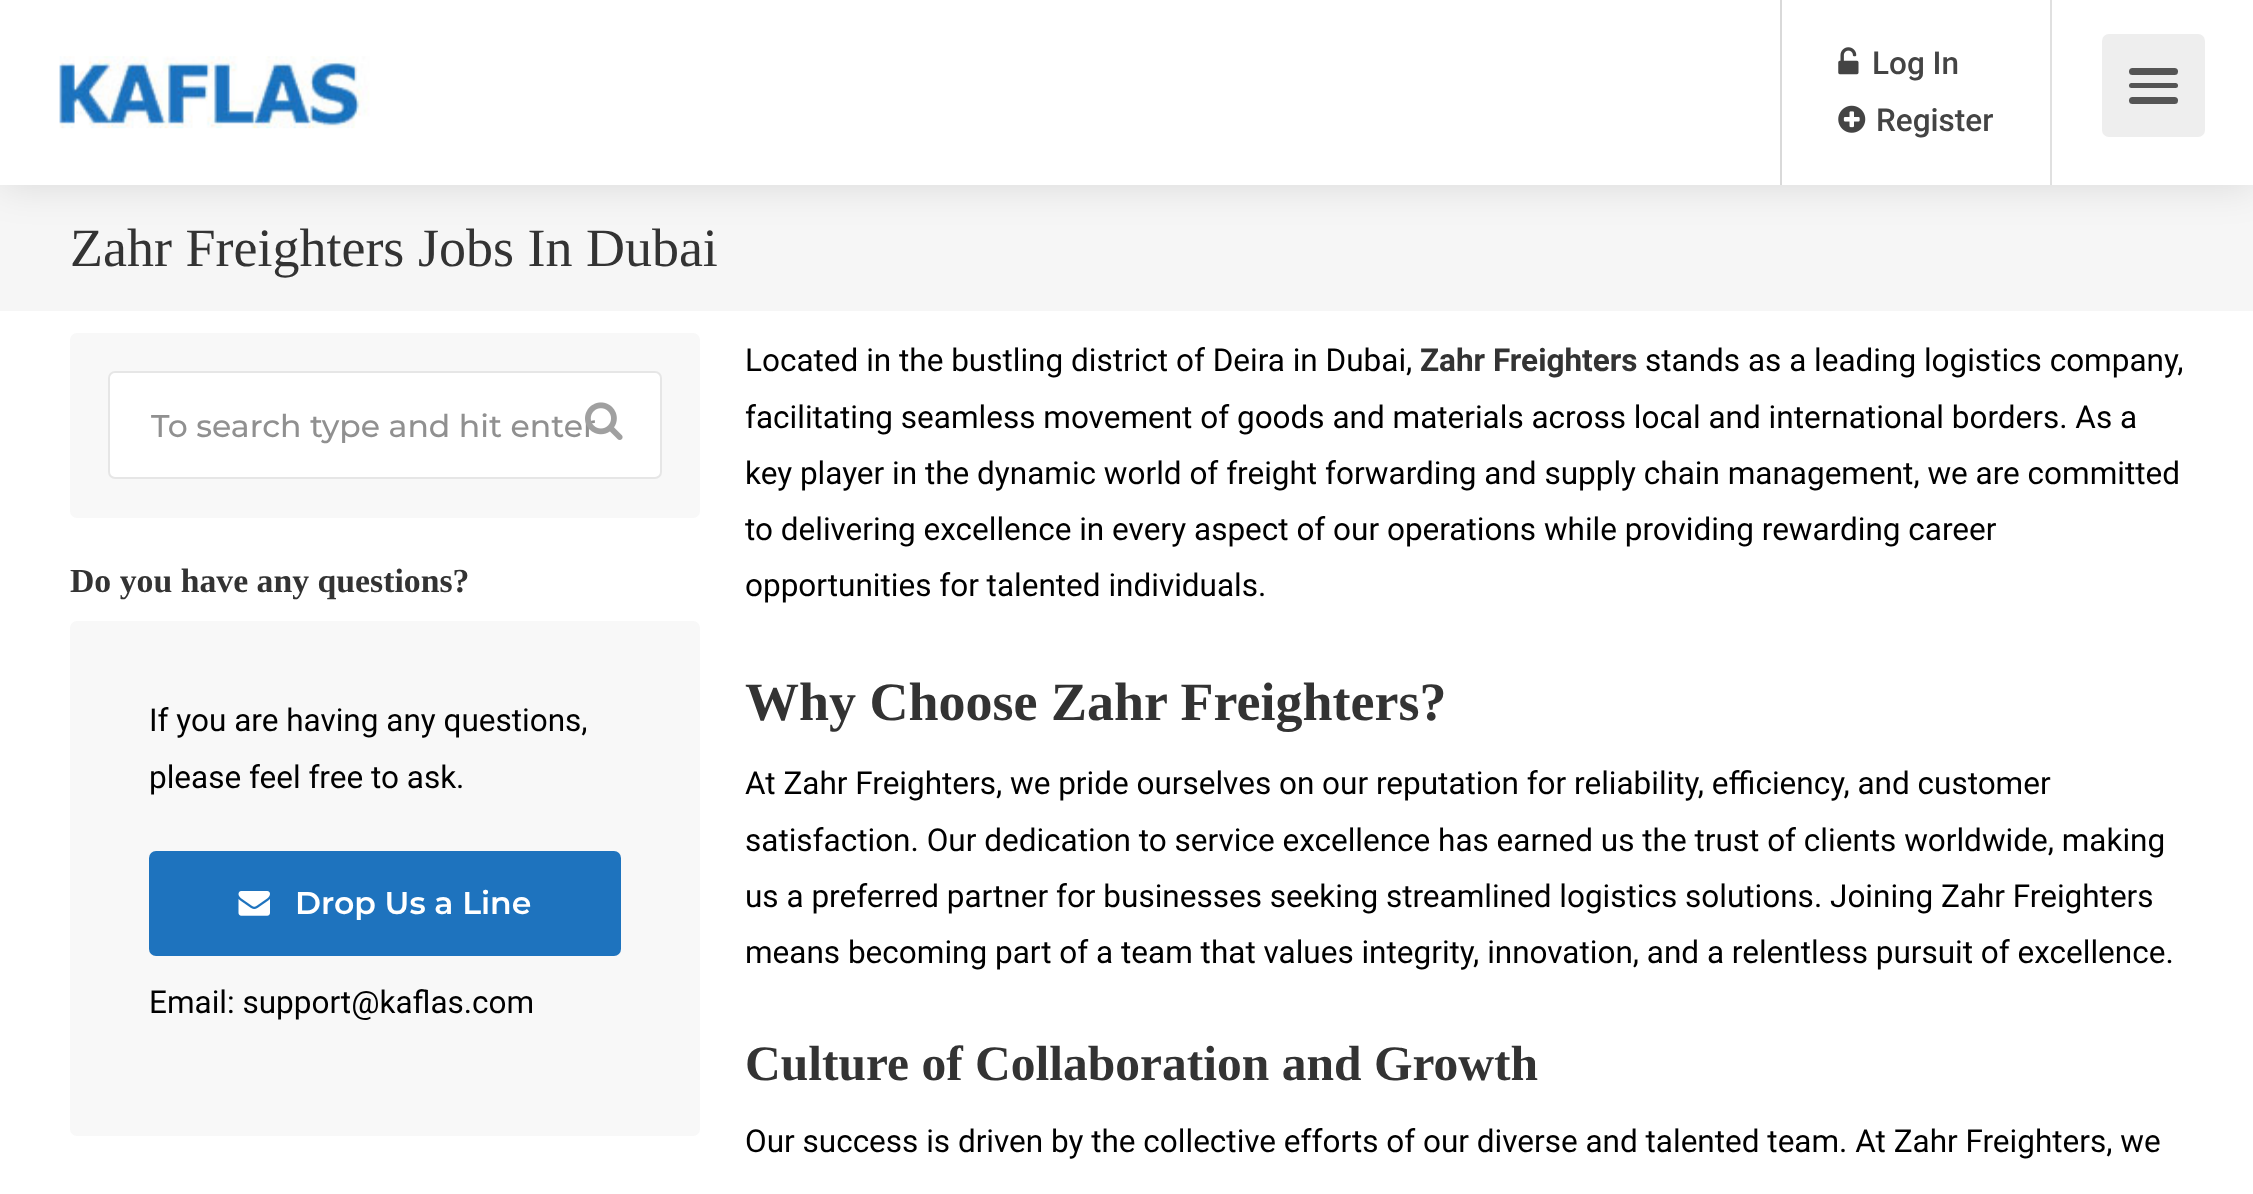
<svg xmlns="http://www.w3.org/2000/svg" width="2253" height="1194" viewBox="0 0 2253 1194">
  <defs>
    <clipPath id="clip1"><path d="M151 405h468v41H151z"/></clipPath>
  </defs>
  <rect width="100%" height="100%" fill="#fff"/>
  <path d="M0 185h2253v126H0z" fill="#f6f6f6"/>
  <path d="M0 0h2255v185H0z" fill="#0000001f" filter="blur(20px)"/>
  <path d="M0 0h2253v185H0z" fill="#fff"/>
  <image x="59" y="56" width="311" height="73" href="img/1.png"/>
  <path d="M2050 0h2v185H2050z" fill="#e0e0e0"/>
  <path d="M1780 0h2v185H1780z" fill="#d9d9d9"/>
  <image x="1838" y="47" width="21" height="28" href="img/2.png"/>
  <image x="1838" y="105" width="28" height="28" href="img/3.png"/>
  <rect x="2102" y="34" width="103" height="103" rx="7" fill="#eee"/>
  <rect x="2129" y="97" width="49" height="7" rx="3.5" fill="#555"/>
  <rect x="2129" y="68" width="49" height="7" rx="3.5" fill="#555"/>
  <rect x="2129" y="83" width="49" height="5" rx="2.5" fill="#555"/>
  <rect x="70" y="333" width="630" height="185" rx="7" fill="#f8f8f8"/>
  <rect x="109" y="372" width="552" height="106" rx="6" fill="#fff" stroke="#e6e6e6" stroke-width="2"/>
  <rect x="70" y="621" width="630" height="515" rx="7" fill="#f8f8f8"/>
  <rect x="149" y="851" width="472" height="105" rx="7" fill="#1e73be"/>
  <image x="238" y="891" width="32" height="25" href="img/5.png"/>
  <g font-family="Roboto" font-size="31.5" font-weight="500" fill="#444">
    <text x="1872" y="74">Log In</text>
    <text x="1876" y="131">Register</text>
  </g>
  <text x="70" y="266" font-family="Liberation Serif" font-size="54" fill="#333">Zahr Freighters Jobs In Dubai</text>
  <g clip-path="url(#clip1)">
    <text x="151" y="437" font-family="Montserrat" font-size="31.5" font-weight="500" fill="#909090">To search type and hit enter</text>
  </g>
  <image x="585" y="402" width="38" height="38" href="img/4.png"/>
  <text x="70" y="592" font-family="Liberation Serif" font-size="33.75" font-weight="bold" fill="#333">Do you have any questions?</text>
  <g font-family="Roboto" font-size="31.5" fill="#000">
    <text x="149" y="731">If you are having any questions,</text>
    <text x="149" y="788">please feel free to ask.</text>
  </g>
  <text x="295" y="914" font-family="Montserrat" font-size="31.5" font-weight="600" fill="#fff">Drop Us a Line</text>
  <g font-family="Roboto" font-size="31.5" fill="#000">
    <text x="149" y="1013">Email: support@kaflas.com</text>
    <text x="745" y="371">Located in the bustling district of Deira in Dubai,</text>
  </g>
  <text x="1420" y="371" font-family="Roboto" font-size="31.5" font-weight="bold" fill="#333">Zahr Freighters</text>
  <g font-family="Roboto" font-size="31.5" fill="#000">
    <text x="1645" y="371">stands as a leading logistics company,</text>
    <text x="745" y="428">facilitating seamless movement of goods and materials across local and international borders. As a</text>
    <text x="745" y="484">key player in the dynamic world of freight forwarding and supply chain management, we are committed</text>
    <text x="745" y="540">to delivering excellence in every aspect of our operations while providing rewarding career</text>
    <text x="745" y="596">opportunities for talented individuals.</text>
  </g>
  <text x="745" y="720" font-family="Liberation Serif" font-size="54" font-weight="bold" fill="#333">Why Choose Zahr Freighters?</text>
  <g font-family="Roboto" font-size="31.5" fill="#000">
    <text x="745" y="794">At Zahr Freighters, we pride ourselves on our reputation for reliability, efficiency, and customer</text>
    <text x="745" y="851">satisfaction. Our dedication to service excellence has earned us the trust of clients worldwide, making</text>
    <text x="745" y="907">us a preferred partner for businesses seeking streamlined logistics solutions. Joining Zahr Freighters</text>
    <text x="745" y="963">means becoming part of a team that values integrity, innovation, and a relentless pursuit of excellence.</text>
  </g>
  <text x="745" y="1080" font-family="Liberation Serif" font-size="49.5" font-weight="bold" fill="#333">Culture of Collaboration and Growth</text>
  <text x="745" y="1152" font-family="Roboto" font-size="31.5" fill="#000">Our success is driven by the collective efforts of our diverse and talented team. At Zahr Freighters, we</text>
</svg>
